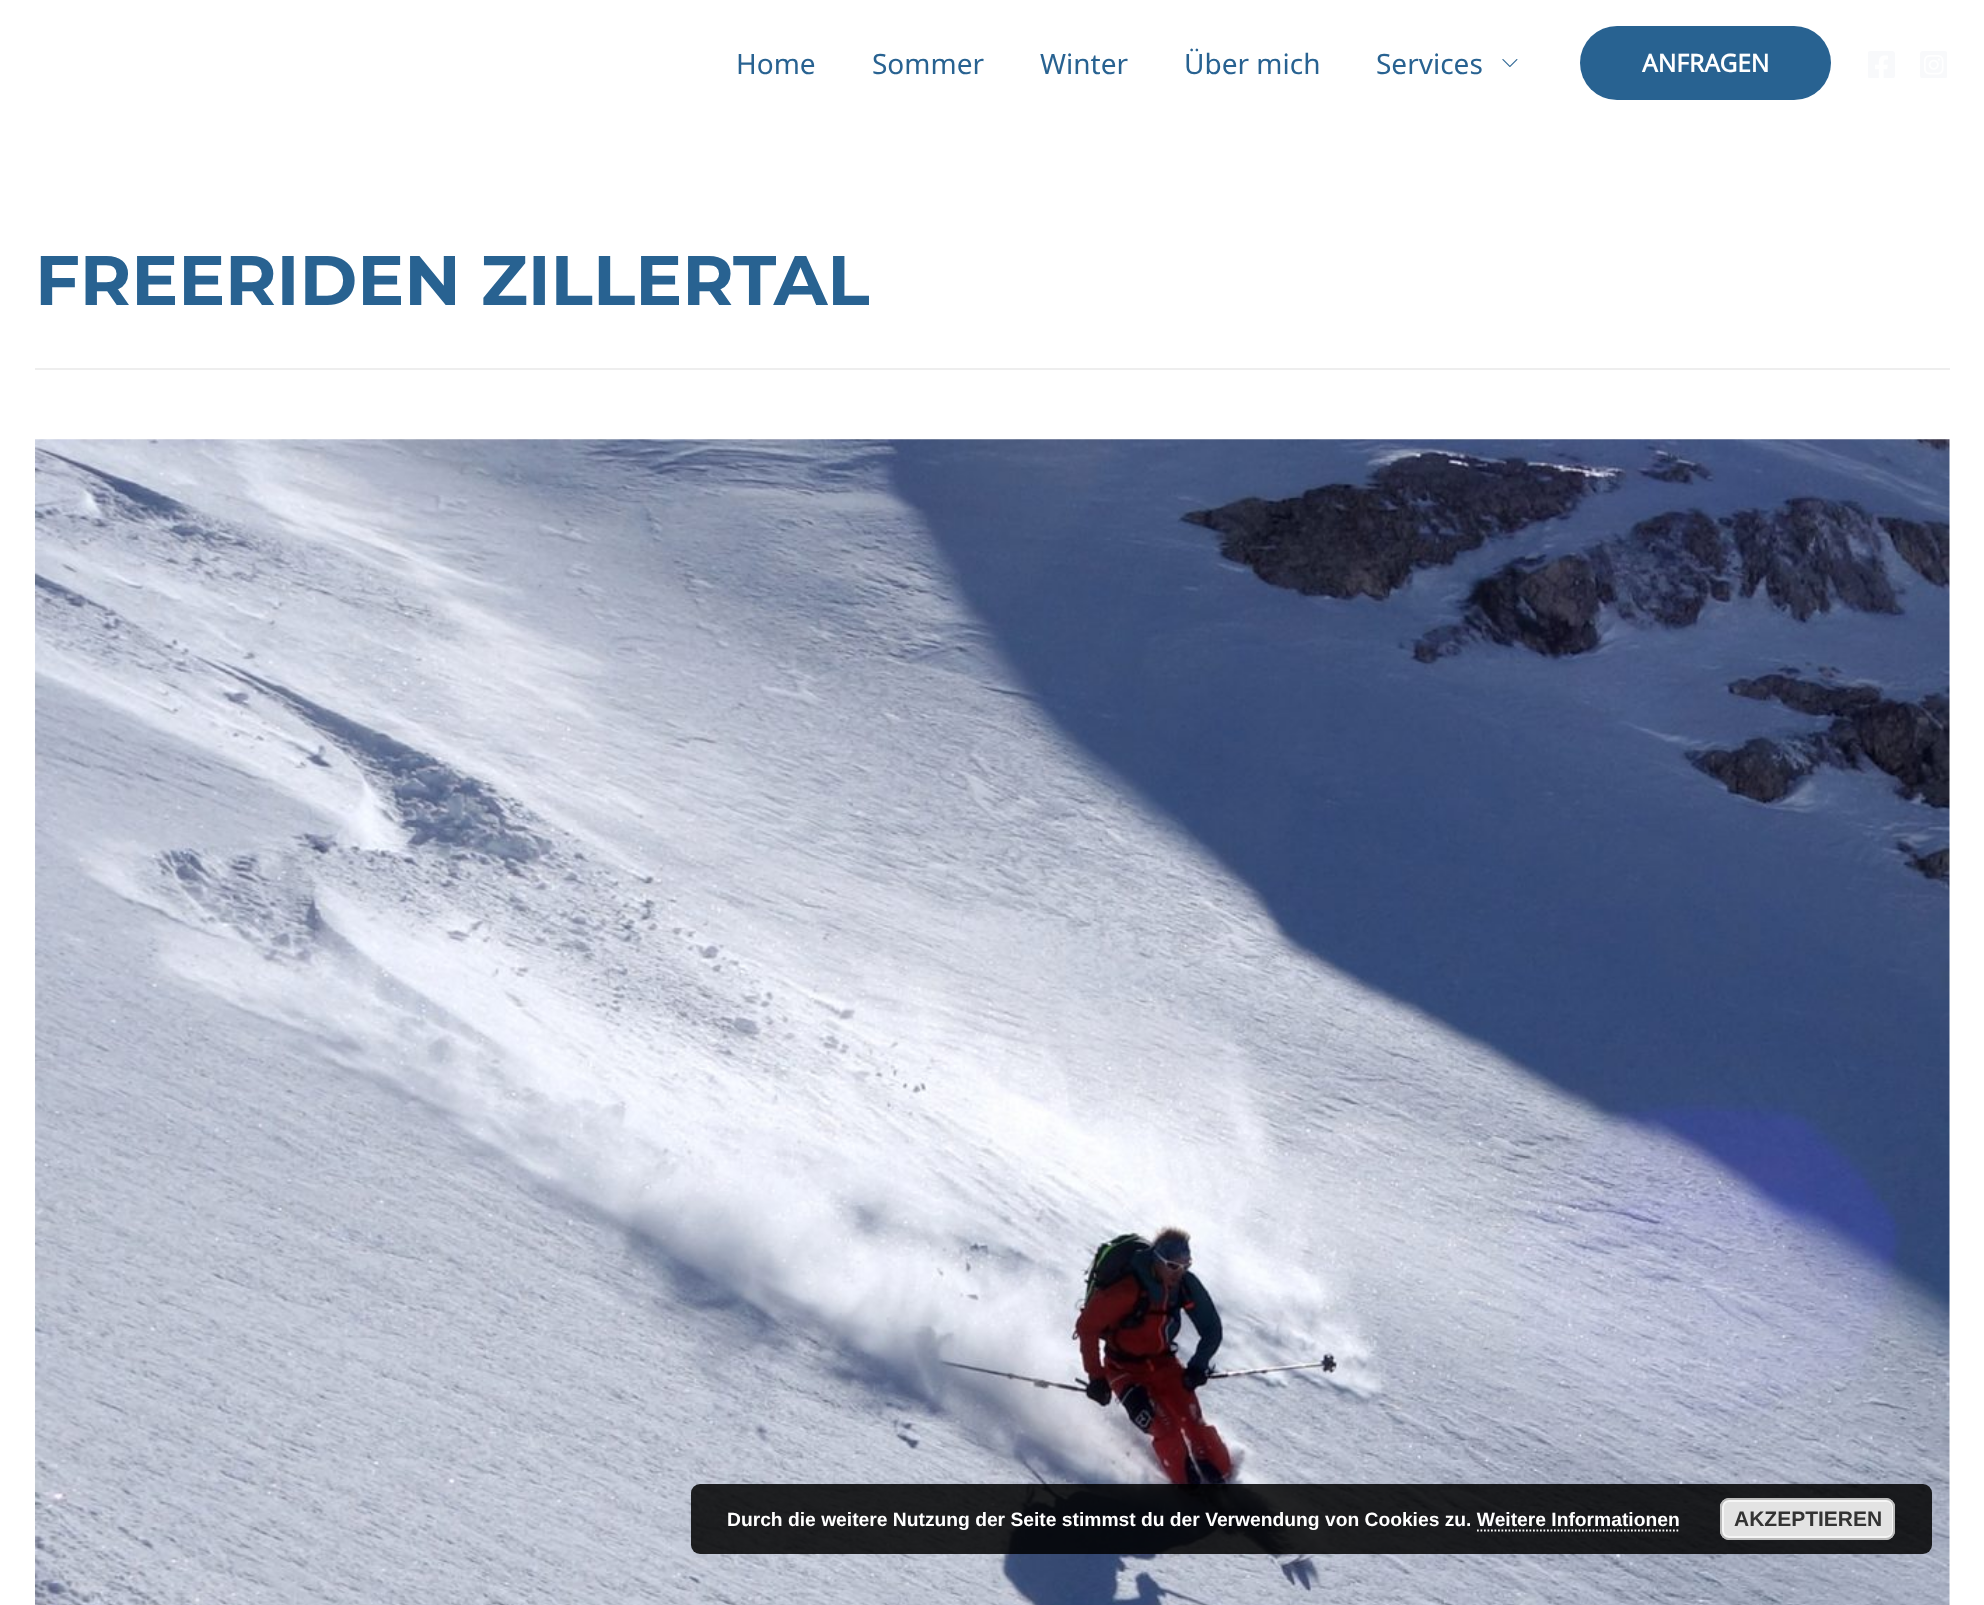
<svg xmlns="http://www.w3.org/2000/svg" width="1984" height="1605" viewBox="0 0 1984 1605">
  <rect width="100%" height="100%" fill="#fff"/>
  <image x="1502" y="59" width="16" height="8" href="img/1.png"/>
  <rect x="1580" y="26" width="251" height="74" rx="37" fill="#286291"/>
  <image x="1868" y="51" width="27" height="27" href="img/2.png"/>
  <image x="1920" y="51" width="27" height="27" href="img/3.png"/>
  <path d="M35 368h1915v2H35z" fill="#eee"/>
  <image x="35" y="439" width="1915" height="1166" href="img/4.png"/>
  <rect x="691" y="1484" width="1241" height="70" rx="9" fill="#000000d9"/>
  <rect x="1720" y="1498" width="175" height="42" rx="9" fill="#e3e3e3"/>
  <rect x="1723" y="1501" width="170" height="36" rx="6" fill="none" stroke="#f6f6f6" stroke-width="2"/>
  <rect x="1721" y="1499" width="173" height="40" rx="8" fill="none" stroke="#bbb" stroke-width="2"/>
  <path d="M1477 1530.5H1680" fill="none" stroke="#fff" stroke-width="1.8" stroke-dasharray="1.75 1.75"/>
  <g font-family="Noto Sans" font-size="28" fill="#286291">
    <text x="736" y="74">Home</text>
    <text x="872" y="74">Sommer</text>
    <text x="1040" y="74">Winter</text>
    <text x="1184" y="74">Über mich</text>
    <text x="1376" y="74">Services</text>
  </g>
  <text x="1642" y="72" font-family="Noto Sans" font-size="24.5" font-weight="bold" fill="#fff">ANFRAGEN</text>
  <text x="35" y="305" font-family="Montserrat" font-size="70" font-weight="100" fill="#286291">FREERIDEN ZILLERTAL</text>
  <text x="727" y="1526" font-family="Liberation Sans" font-size="19.25" font-weight="bold" fill="#fff">Durch die weitere Nutzung der Seite stimmst du der Verwendung von Cookies zu. Weitere Informationen</text>
  <text x="1734" y="1526" font-family="Liberation Sans" font-size="21" font-weight="bold" fill="#333">AKZEPTIEREN</text>
</svg>
